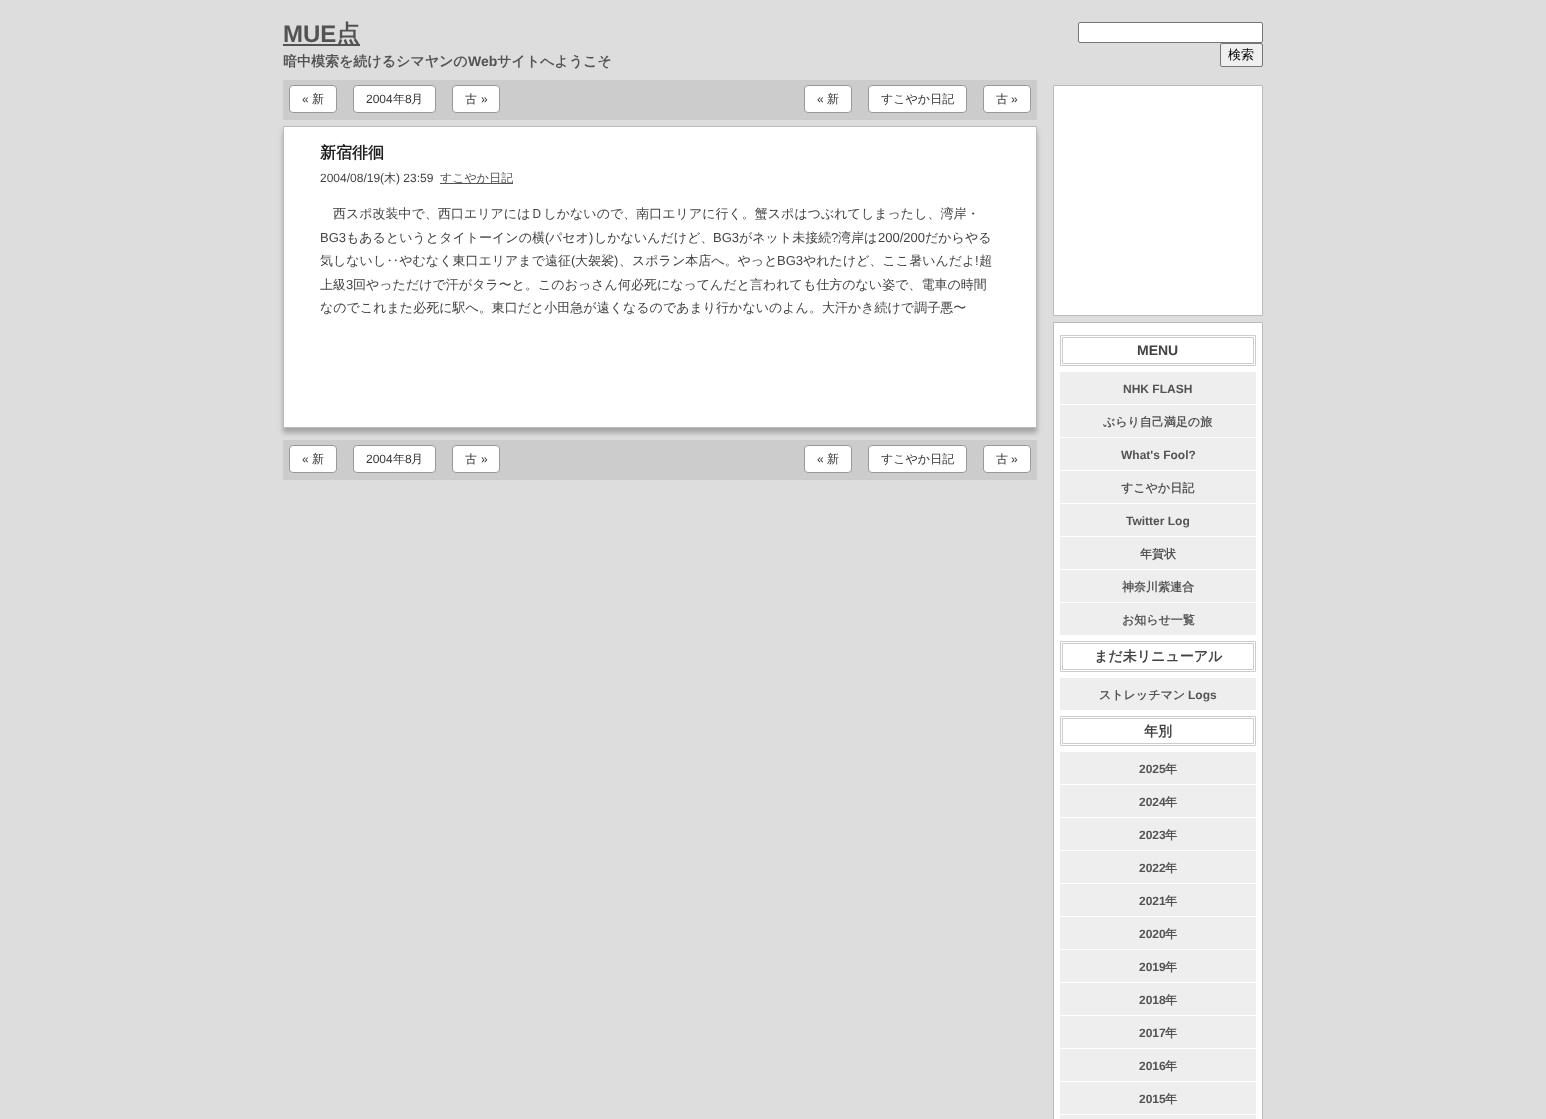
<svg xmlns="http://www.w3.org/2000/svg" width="1546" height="1119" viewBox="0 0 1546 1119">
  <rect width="100%" height="100%" fill="#ddd"/>
  <path d="M283 44h77v2H283z" fill="#535353"/>
  <path d="M283 80h754v40H283z" fill="#ccc"/>
  <rect x="289.5" y="85.5" width="47" height="27" rx="3.5" fill="#fff" stroke="#999"/>
  <rect x="353.5" y="85.5" width="82" height="27" rx="3.5" fill="#fff" stroke="#999"/>
  <rect x="452.5" y="85.5" width="47" height="27" rx="3.5" fill="#fff" stroke="#999"/>
  <rect x="804.5" y="85.5" width="47" height="27" rx="3.5" fill="#fff" stroke="#999"/>
  <rect x="868.5" y="85.5" width="98" height="27" rx="3.5" fill="#fff" stroke="#999"/>
  <rect x="983.5" y="85.5" width="47" height="27" rx="3.5" fill="#fff" stroke="#999"/>
  <path d="M283 131h754v302H283z" fill="#a3a3a3" filter="blur(2.5px)"/>
  <path d="M283.5 126.5h753v301H283.5z" fill="#fff" stroke="#bbb"/>
  <path d="M440 183h73v1H440z" fill="#535353"/>
  <path d="M283 440h754v40H283z" fill="#ccc"/>
  <rect x="289.5" y="445.5" width="47" height="27" rx="3.5" fill="#fff" stroke="#999"/>
  <rect x="353.5" y="445.5" width="82" height="27" rx="3.5" fill="#fff" stroke="#999"/>
  <rect x="452.5" y="445.5" width="47" height="27" rx="3.5" fill="#fff" stroke="#999"/>
  <rect x="804.5" y="445.5" width="47" height="27" rx="3.5" fill="#fff" stroke="#999"/>
  <rect x="868.5" y="445.5" width="98" height="27" rx="3.5" fill="#fff" stroke="#999"/>
  <rect x="983.5" y="445.5" width="47" height="27" rx="3.5" fill="#fff" stroke="#999"/>
  <rect x="1078.5" y="22.5" width="184" height="20" rx="1.5" fill="#fff" stroke="#767676"/>
  <rect x="1220.5" y="43.5" width="42" height="23" rx="1.5" fill="#efefef" stroke="#767676"/>
  <path d="M1053.5 85.5h209v230H1053.5z" fill="#fff" stroke="#bbb"/>
  <path d="M1053.5 322.5h209v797H1053.5z" fill="#fff" stroke="#bbb"/>
  <path d="M1060.5 335.5h195v30H1060.5z" fill="none" stroke="#ccc"/>
  <path d="M1062.5 337.5h191v26H1062.5z" fill="none" stroke="#ccc"/>
  <path d="M1060 372h196v32H1060z" fill="#eee"/>
  <path d="M1060 405h196v32H1060z" fill="#eee"/>
  <path d="M1060 438h196v32H1060z" fill="#eee"/>
  <path d="M1060 471h196v32H1060z" fill="#eee"/>
  <path d="M1060 504h196v32H1060z" fill="#eee"/>
  <path d="M1060 537h196v32H1060z" fill="#eee"/>
  <path d="M1060 570h196v32H1060z" fill="#eee"/>
  <path d="M1060 603h196v32H1060z" fill="#eee"/>
  <path d="M1060.5 641.5h195v30H1060.5z" fill="none" stroke="#ccc"/>
  <path d="M1062.5 643.5h191v26H1062.5z" fill="none" stroke="#ccc"/>
  <path d="M1060 678h196v32H1060z" fill="#eee"/>
  <path d="M1060.5 716.5h195v29H1060.5z" fill="none" stroke="#ccc"/>
  <path d="M1062.5 718.5h191v25H1062.5z" fill="none" stroke="#ccc"/>
  <path d="M1060 752h196v32H1060z" fill="#eee"/>
  <path d="M1060 785h196v32H1060z" fill="#eee"/>
  <path d="M1060 818h196v32H1060z" fill="#eee"/>
  <path d="M1060 851h196v32H1060z" fill="#eee"/>
  <path d="M1060 884h196v32H1060z" fill="#eee"/>
  <path d="M1060 917h196v32H1060z" fill="#eee"/>
  <path d="M1060 950h196v32H1060z" fill="#eee"/>
  <path d="M1060 983h196v32H1060z" fill="#eee"/>
  <path d="M1060 1016h196v32H1060z" fill="#eee"/>
  <path d="M1060 1049h196v32H1060z" fill="#eee"/>
  <path d="M1060 1082h196v32H1060z" fill="#eee"/>
  <path d="M1060 1115h196v4H1060z" fill="#eee"/>
  <text x="283" y="42" font-family="Liberation Sans" font-size="24" font-weight="bold" fill="#535353">MUE</text>
  <text x="336" y="42" font-family="WenQuanYi Zen Hei" font-size="24" font-weight="bold" fill="#535353">点</text>
  <text x="283" y="66" font-family="WenQuanYi Zen Hei" font-size="14" font-weight="bold" fill="#535353">暗中模索を続けるシマヤンの</text>
  <text x="468" y="66" font-family="Liberation Sans" font-size="14" font-weight="bold" fill="#535353">Web</text>
  <text x="497" y="66" font-family="WenQuanYi Zen Hei" font-size="14" font-weight="bold" fill="#535353">サイトへようこそ</text>
  <text x="302" y="103" font-family="Liberation Sans" font-size="12" fill="#333">«</text>
  <text x="312" y="103" font-family="WenQuanYi Zen Hei" font-size="12" font-weight="500" fill="#333">新</text>
  <text x="366" y="103" font-family="Liberation Sans" font-size="12" fill="#333">2004</text>
  <text x="393" y="103" font-family="WenQuanYi Zen Hei" font-size="12" font-weight="500" fill="#333">年</text>
  <text x="405" y="103" font-family="Liberation Sans" font-size="12" fill="#333">8</text>
  <g font-family="WenQuanYi Zen Hei" font-size="12" font-weight="500" fill="#333">
    <text x="411" y="103">月</text>
    <text x="465" y="103">古</text>
  </g>
  <g font-family="Liberation Sans" font-size="12" fill="#333">
    <text x="481" y="103">»</text>
    <text x="817" y="103">«</text>
  </g>
  <g font-family="WenQuanYi Zen Hei" font-size="12" font-weight="500" fill="#333">
    <text x="827" y="103">新</text>
    <text x="881" y="103">すこやか日記</text>
    <text x="996" y="103">古</text>
  </g>
  <text x="1011" y="103" font-family="Liberation Sans" font-size="12" fill="#333">»</text>
  <text x="320" y="158" font-family="WenQuanYi Zen Hei" font-size="16" font-weight="bold" fill="#222">新宿徘徊</text>
  <text x="320" y="182" font-family="Liberation Sans" font-size="12" fill="#424242">2004/08/19(</text>
  <text x="384" y="182" font-family="WenQuanYi Zen Hei" font-size="12" font-weight="500" fill="#424242">木</text>
  <text x="396" y="182" font-family="Liberation Sans" font-size="12" fill="#424242">) 23:59</text>
  <text x="440" y="182" font-family="WenQuanYi Zen Hei" font-size="12" font-weight="500" fill="#535353">すこやか日記</text>
  <text x="333" y="218" font-family="WenQuanYi Zen Hei" font-size="13" font-weight="500" fill="#424242">西スポ改装中で、西口エリアにはＤしかないので、南口エリアに行く。蟹スポはつぶれてしまったし、湾岸・</text>
  <text x="320" y="242" font-family="Liberation Sans" font-size="13" fill="#424242">BG3</text>
  <text x="346" y="242" font-family="WenQuanYi Zen Hei" font-size="13" font-weight="500" fill="#424242">もあるというとタイトーインの横</text>
  <text x="545" y="242" font-family="Liberation Sans" font-size="13" fill="#424242">(</text>
  <text x="549" y="242" font-family="WenQuanYi Zen Hei" font-size="13" font-weight="500" fill="#424242">パセオ</text>
  <text x="589" y="242" font-family="Liberation Sans" font-size="13" fill="#424242">)</text>
  <text x="594" y="242" font-family="WenQuanYi Zen Hei" font-size="13" font-weight="500" fill="#424242">しかないんだけど、</text>
  <text x="713" y="242" font-family="Liberation Sans" font-size="13" fill="#424242">BG3</text>
  <text x="739" y="242" font-family="WenQuanYi Zen Hei" font-size="13" font-weight="500" fill="#424242">がネット未接続</text>
  <text x="831" y="242" font-family="Liberation Sans" font-size="13" fill="#424242">?</text>
  <text x="838" y="242" font-family="WenQuanYi Zen Hei" font-size="13" font-weight="500" fill="#424242">湾岸は</text>
  <text x="878" y="242" font-family="Liberation Sans" font-size="13" fill="#424242">200/200</text>
  <g font-family="WenQuanYi Zen Hei" font-size="13" font-weight="500" fill="#424242">
    <text x="925" y="242">だからやる</text>
    <text x="320" y="265">気しないし‥やむなく東口エリアまで遠征</text>
  </g>
  <text x="571" y="265" font-family="Liberation Sans" font-size="13" fill="#424242">(</text>
  <text x="575" y="265" font-family="WenQuanYi Zen Hei" font-size="13" font-weight="500" fill="#424242">大袈裟</text>
  <text x="614" y="265" font-family="Liberation Sans" font-size="13" fill="#424242">)</text>
  <text x="619" y="265" font-family="WenQuanYi Zen Hei" font-size="13" font-weight="500" fill="#424242">、スポラン本店へ。やっと</text>
  <text x="777" y="265" font-family="Liberation Sans" font-size="13" fill="#424242">BG3</text>
  <text x="803" y="265" font-family="WenQuanYi Zen Hei" font-size="13" font-weight="500" fill="#424242">やれたけど、ここ暑いんだよ 超</text>
  <text x="975" y="265" font-family="Liberation Sans" font-size="13" fill="#424242">!</text>
  <text x="320" y="289" font-family="WenQuanYi Zen Hei" font-size="13" font-weight="500" fill="#424242">上級</text>
  <text x="346" y="289" font-family="Liberation Sans" font-size="13" fill="#424242">3</text>
  <g font-family="WenQuanYi Zen Hei" font-size="13" font-weight="500" fill="#424242">
    <text x="353" y="289">回やっただけで汗がタラ〜と。このおっさん何必死になってんだと言われても仕方のない姿で、電車の時間</text>
    <text x="320" y="312">なのでこれまた必死に駅へ。東口だと小田急が遠くなるのであまり行かないのよん。大汗かき続けで調子悪〜</text>
  </g>
  <text x="302" y="463" font-family="Liberation Sans" font-size="12" fill="#333">«</text>
  <text x="312" y="463" font-family="WenQuanYi Zen Hei" font-size="12" font-weight="500" fill="#333">新</text>
  <text x="366" y="463" font-family="Liberation Sans" font-size="12" fill="#333">2004</text>
  <text x="393" y="463" font-family="WenQuanYi Zen Hei" font-size="12" font-weight="500" fill="#333">年</text>
  <text x="405" y="463" font-family="Liberation Sans" font-size="12" fill="#333">8</text>
  <g font-family="WenQuanYi Zen Hei" font-size="12" font-weight="500" fill="#333">
    <text x="411" y="463">月</text>
    <text x="465" y="463">古</text>
  </g>
  <g font-family="Liberation Sans" font-size="12" fill="#333">
    <text x="481" y="463">»</text>
    <text x="817" y="463">«</text>
  </g>
  <g font-family="WenQuanYi Zen Hei" font-size="12" font-weight="500" fill="#333">
    <text x="827" y="463">新</text>
    <text x="881" y="463">すこやか日記</text>
    <text x="996" y="463">古</text>
  </g>
  <text x="1011" y="463" font-family="Liberation Sans" font-size="12" fill="#333">»</text>
  <text x="1228" y="59" font-family="WenQuanYi Zen Hei" font-size="13" font-weight="500" fill="#000">検索</text>
  <text x="1137" y="355" font-family="Liberation Sans" font-size="14" font-weight="bold" fill="#424242">MENU</text>
  <text x="1123" y="393" font-family="Liberation Sans" font-size="12" font-weight="bold" fill="#535353">NHK FLASH</text>
  <text x="1103" y="426" font-family="WenQuanYi Zen Hei" font-size="12" font-weight="bold" fill="#535353">ぶらり自己満足の旅</text>
  <text x="1121" y="459" font-family="Liberation Sans" font-size="12" font-weight="bold" fill="#535353">What's Fool?</text>
  <text x="1121" y="492" font-family="WenQuanYi Zen Hei" font-size="12" font-weight="bold" fill="#535353">すこやか日記</text>
  <text x="1126" y="525" font-family="Liberation Sans" font-size="12" font-weight="bold" fill="#535353">Twitter Log</text>
  <g font-family="WenQuanYi Zen Hei" font-size="12" font-weight="bold" fill="#535353">
    <text x="1140" y="558">年賀状</text>
    <text x="1122" y="591">神奈川紫連合</text>
    <text x="1122" y="624">お知らせ一覧</text>
  </g>
  <text x="1094" y="661" font-family="WenQuanYi Zen Hei" font-size="14" font-weight="bold" fill="#424242">まだ未リニューアル</text>
  <text x="1099" y="699" font-family="WenQuanYi Zen Hei" font-size="12" font-weight="bold" fill="#535353">ストレッチマン</text>
  <text x="1188" y="699" font-family="Liberation Sans" font-size="12" font-weight="bold" fill="#535353">Logs</text>
  <text x="1144" y="736" font-family="WenQuanYi Zen Hei" font-size="14" font-weight="bold" fill="#424242">年別</text>
  <text x="1139" y="773" font-family="Liberation Sans" font-size="12" font-weight="bold" fill="#535353">2025</text>
  <text x="1165" y="773" font-family="WenQuanYi Zen Hei" font-size="12" font-weight="bold" fill="#535353">年</text>
  <text x="1139" y="806" font-family="Liberation Sans" font-size="12" font-weight="bold" fill="#535353">2024</text>
  <text x="1165" y="806" font-family="WenQuanYi Zen Hei" font-size="12" font-weight="bold" fill="#535353">年</text>
  <text x="1139" y="839" font-family="Liberation Sans" font-size="12" font-weight="bold" fill="#535353">2023</text>
  <text x="1165" y="839" font-family="WenQuanYi Zen Hei" font-size="12" font-weight="bold" fill="#535353">年</text>
  <text x="1139" y="872" font-family="Liberation Sans" font-size="12" font-weight="bold" fill="#535353">2022</text>
  <text x="1165" y="872" font-family="WenQuanYi Zen Hei" font-size="12" font-weight="bold" fill="#535353">年</text>
  <text x="1139" y="905" font-family="Liberation Sans" font-size="12" font-weight="bold" fill="#535353">2021</text>
  <text x="1165" y="905" font-family="WenQuanYi Zen Hei" font-size="12" font-weight="bold" fill="#535353">年</text>
  <text x="1139" y="938" font-family="Liberation Sans" font-size="12" font-weight="bold" fill="#535353">2020</text>
  <text x="1165" y="938" font-family="WenQuanYi Zen Hei" font-size="12" font-weight="bold" fill="#535353">年</text>
  <text x="1139" y="971" font-family="Liberation Sans" font-size="12" font-weight="bold" fill="#535353">2019</text>
  <text x="1165" y="971" font-family="WenQuanYi Zen Hei" font-size="12" font-weight="bold" fill="#535353">年</text>
  <text x="1139" y="1004" font-family="Liberation Sans" font-size="12" font-weight="bold" fill="#535353">2018</text>
  <text x="1165" y="1004" font-family="WenQuanYi Zen Hei" font-size="12" font-weight="bold" fill="#535353">年</text>
  <text x="1139" y="1037" font-family="Liberation Sans" font-size="12" font-weight="bold" fill="#535353">2017</text>
  <text x="1165" y="1037" font-family="WenQuanYi Zen Hei" font-size="12" font-weight="bold" fill="#535353">年</text>
  <text x="1139" y="1070" font-family="Liberation Sans" font-size="12" font-weight="bold" fill="#535353">2016</text>
  <text x="1165" y="1070" font-family="WenQuanYi Zen Hei" font-size="12" font-weight="bold" fill="#535353">年</text>
  <text x="1139" y="1103" font-family="Liberation Sans" font-size="12" font-weight="bold" fill="#535353">2015</text>
  <text x="1165" y="1103" font-family="WenQuanYi Zen Hei" font-size="12" font-weight="bold" fill="#535353">年</text>
</svg>
